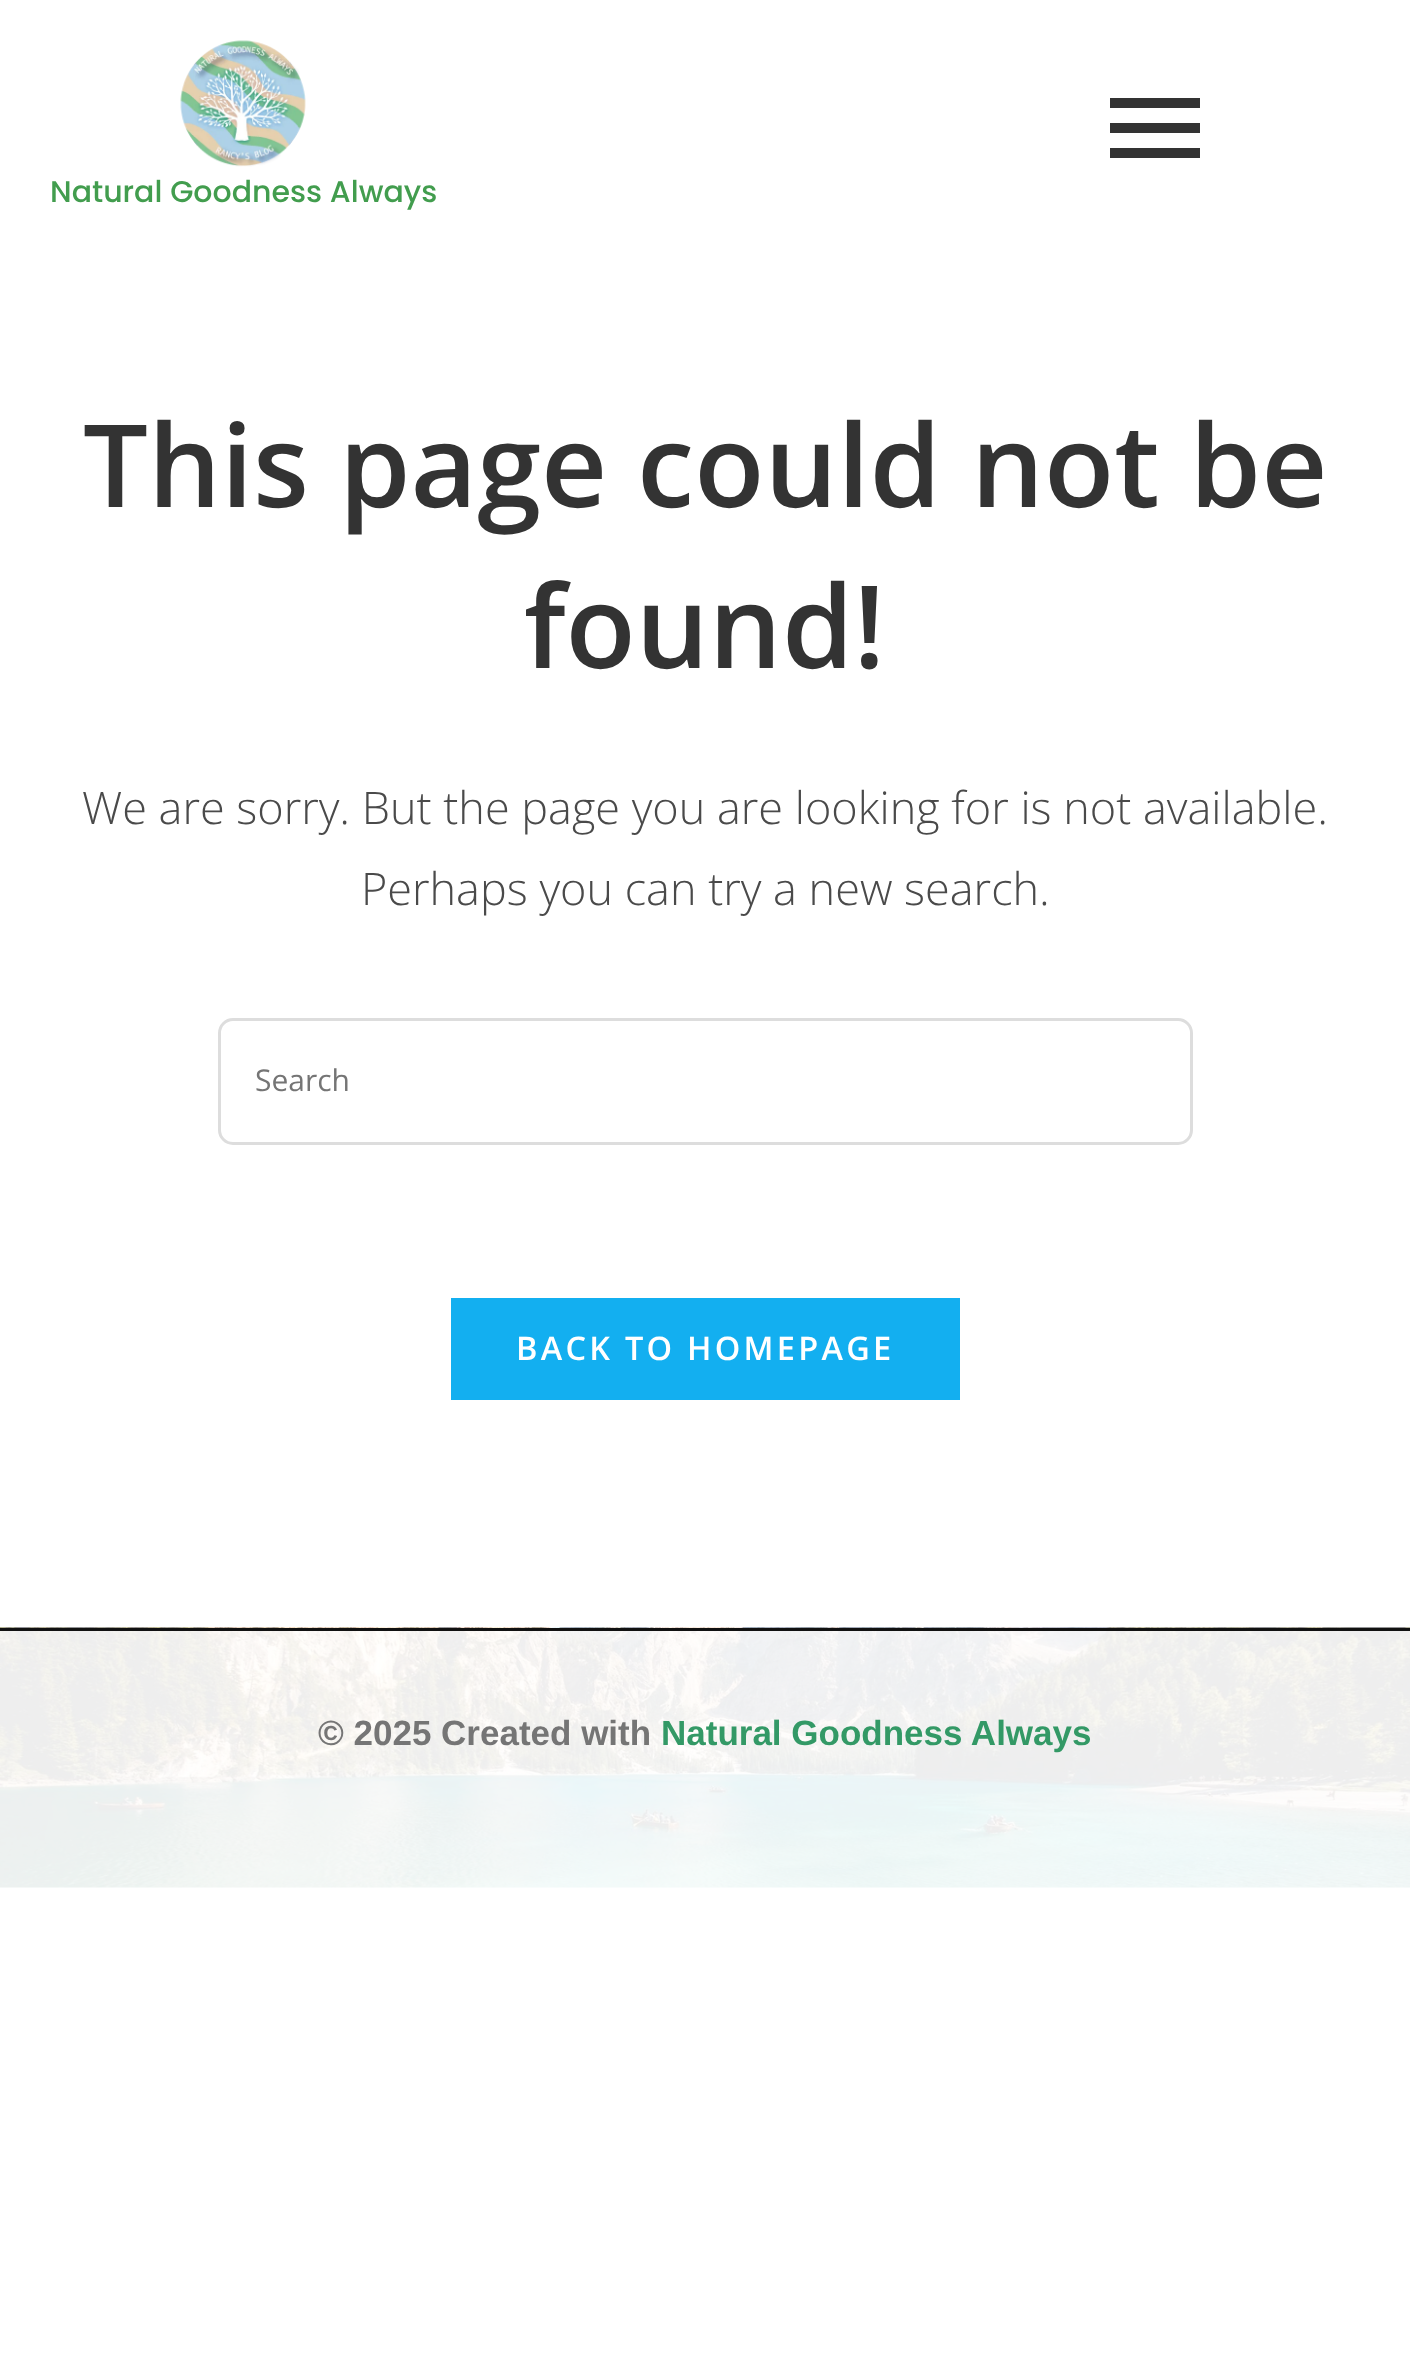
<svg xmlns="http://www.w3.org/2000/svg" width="1410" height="2354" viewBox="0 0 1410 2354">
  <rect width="100%" height="100%" fill="#fff"/>
  <path d="M1110 98h90v10H1110z" fill="#333"/>
  <path d="M1110 123h90v10H1110z" fill="#333"/>
  <path d="M1110 148h90v10H1110z" fill="#333"/>
  <image x="180" y="40" width="126" height="127" href="img/1.png"/>
  <rect x="219.5" y="1019.5" width="972" height="124" rx="13.5" fill="none" stroke="#ddd" stroke-width="3"/>
  <path d="M451 1298h509v102H451z" fill="#13aff0"/>
  <image x="0" y="1627" width="1410" height="261" href="img/2.png"/>
  <path d="M0 1628h1410v3H0z" fill="#111"/>
  <text x="50" y="202" font-family="Poppins" font-size="30" font-weight="500" fill="#429d4e">Natural Goodness Always</text>
  <g font-family="Open Sans" font-size="115" font-weight="600" fill="#333">
    <text x="83" y="507">This page could not be</text>
    <text x="524" y="668">found!</text>
  </g>
  <g font-family="Open Sans" font-size="45" font-weight="300" fill="#4a4a4a">
    <text x="82" y="824">We are sorry. But the page you are looking for is not available.</text>
    <text x="361" y="905">Perhaps you can try a new search.</text>
  </g>
  <text x="255" y="1091" font-family="Open Sans" font-size="30" fill="#757575">Search</text>
  <text x="516" y="1360" font-family="Open Sans" font-size="32.5" font-weight="600" letter-spacing="3.25" fill="#fff">BACK TO HOMEPAGE</text>
  <text x="318" y="1745" font-family="Liberation Sans" font-size="35" font-weight="bold" fill="#757575">© 2025 Created with</text>
  <text x="661" y="1745" font-family="Liberation Sans" font-size="35" font-weight="bold" fill="#396">Natural Goodness Always</text>
</svg>
